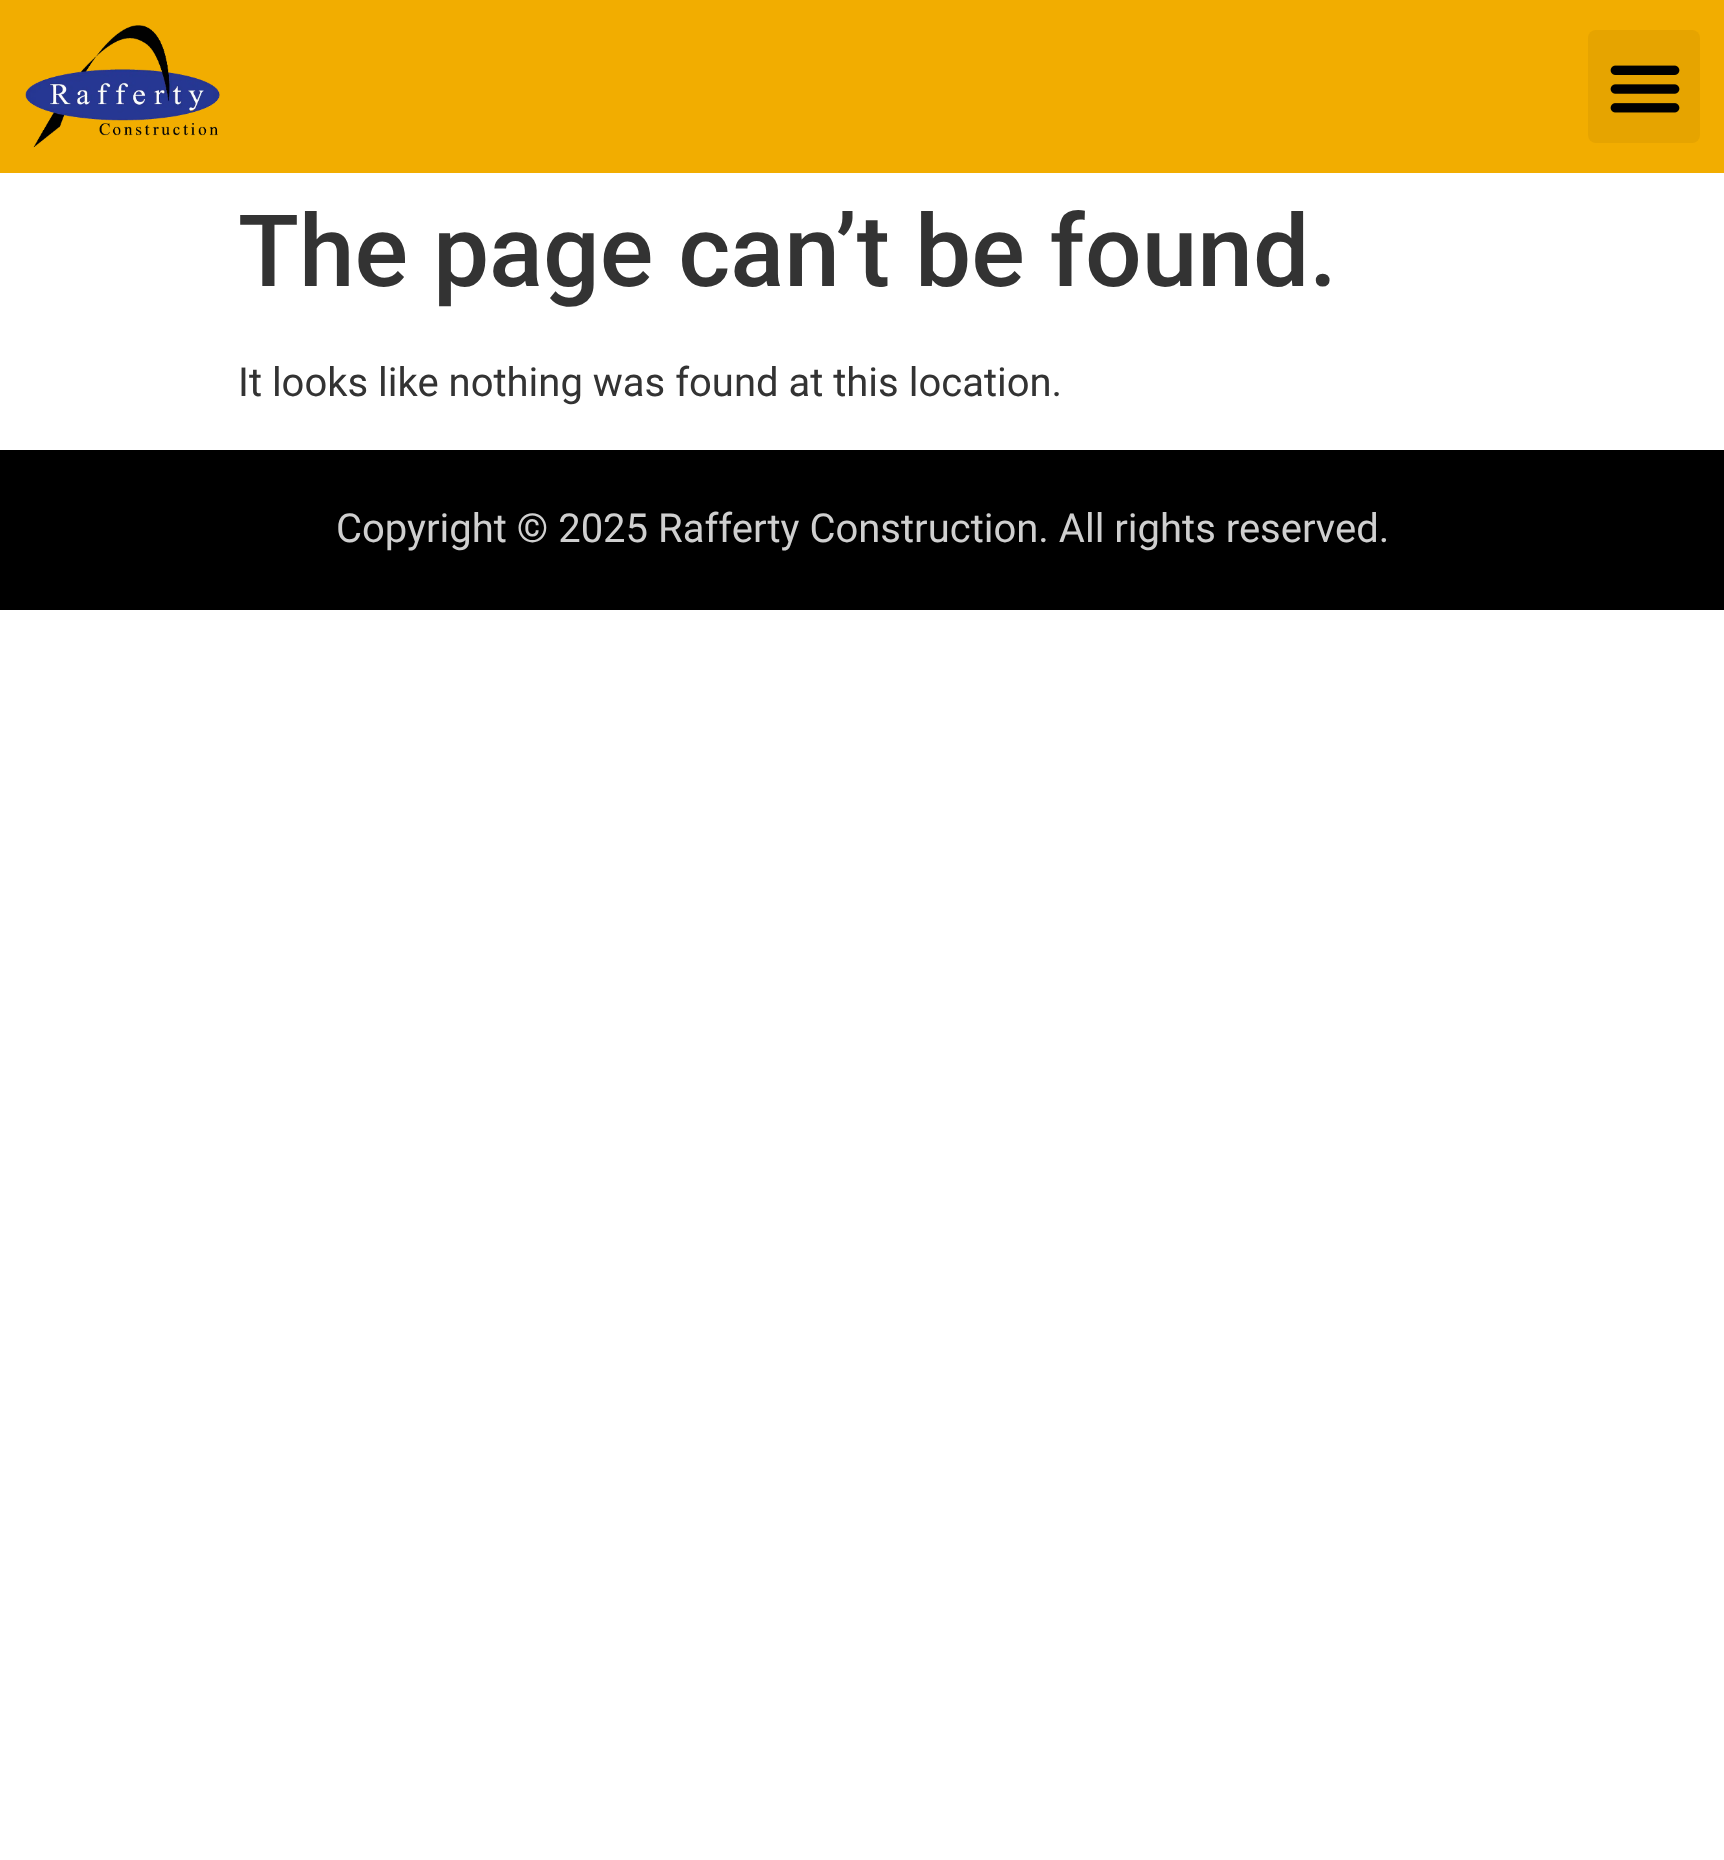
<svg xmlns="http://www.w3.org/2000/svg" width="1724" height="1860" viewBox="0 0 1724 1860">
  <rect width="100%" height="100%" fill="#fff"/>
  <path d="M0 0h1724v173H0z" fill="#f2ad00"/>
  <image x="25" y="25" width="195" height="123" href="img/1.png"/>
  <rect x="1588" y="30" width="112" height="113" rx="8" fill="#e6a400"/>
  <image x="1610" y="65" width="70" height="48" href="img/2.png"/>
  <path d="M0 450h1724v160H0z" fill="#000"/>
  <text x="238" y="286" font-family="Roboto" font-size="100" font-weight="500" fill="#333">The page can’t be found.</text>
  <text x="238" y="396" font-family="Roboto" font-size="40" fill="#333">It looks like nothing was found at this location.</text>
  <text x="336" y="542" font-family="Roboto" font-size="40" fill="#cfcfcf">Copyright © 2025 Rafferty Construction. All rights reserved.</text>
</svg>
